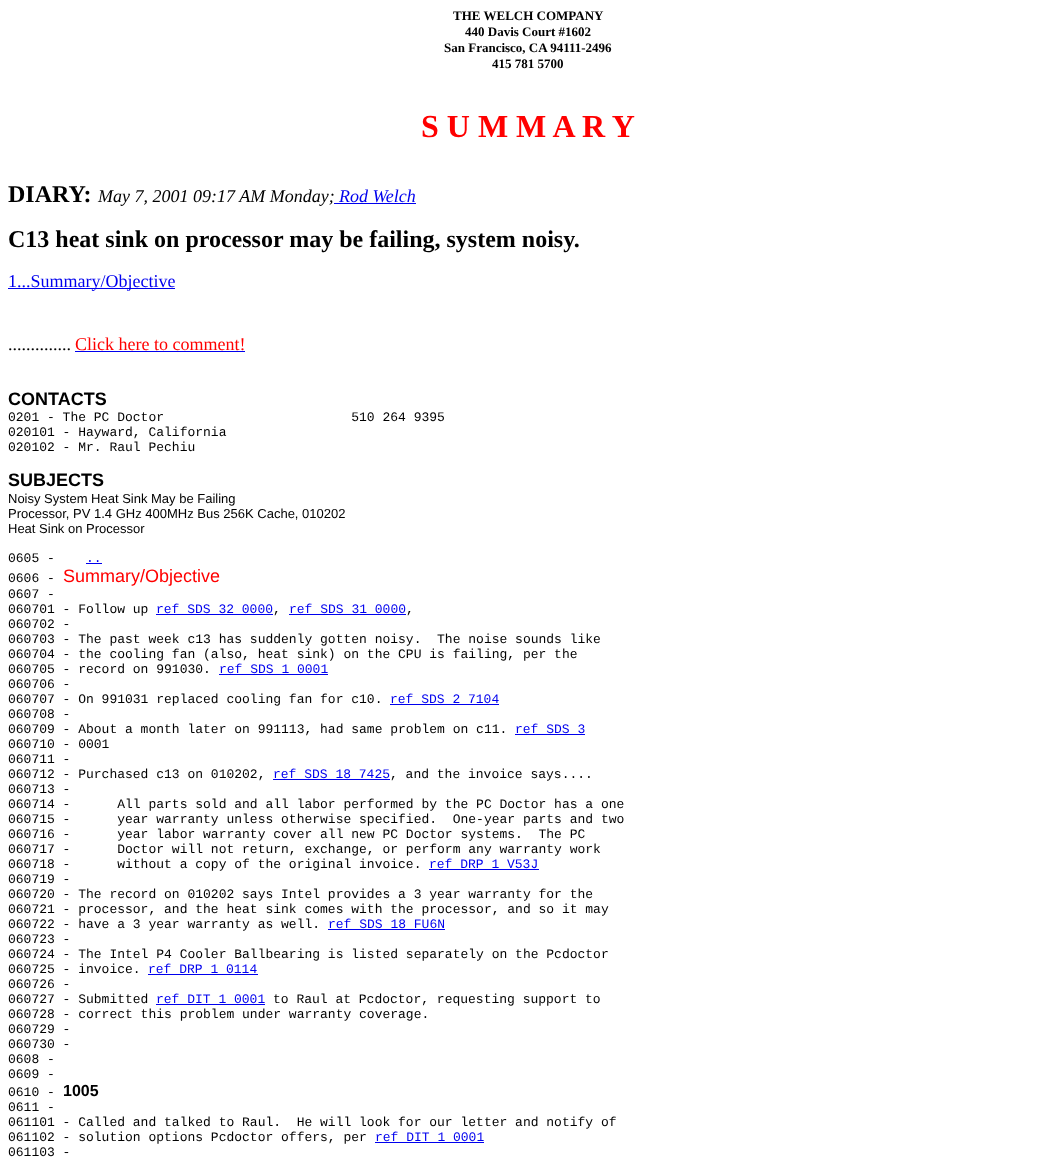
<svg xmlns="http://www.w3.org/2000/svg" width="1056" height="1160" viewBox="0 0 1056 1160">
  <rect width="100%" height="100%" fill="#fff"/>
  <path d="M334 203h82v1H334z" fill="#00e"/>
  <path d="M8 288h167v1H8z" fill="#00e"/>
  <path d="M75 351h170v1H75z" fill="#00e"/>
  <path d="M86 563h16v1H86z" fill="#00e"/>
  <path d="M156 614h117v1H156z" fill="#00e"/>
  <path d="M289 614h117v1H289z" fill="#00e"/>
  <path d="M219 674h109v1H219z" fill="#00e"/>
  <path d="M390 704h109v1H390z" fill="#00e"/>
  <path d="M515 734h70v1H515z" fill="#00e"/>
  <path d="M273 779h117v1H273z" fill="#00e"/>
  <path d="M429 869h110v1H429z" fill="#00e"/>
  <path d="M328 929h117v1H328z" fill="#00e"/>
  <path d="M148 974h110v1H148z" fill="#00e"/>
  <path d="M156 1004h109v1H156z" fill="#00e"/>
  <path d="M375 1142h109v1H375z" fill="#00e"/>
  <g font-family="Liberation Serif" font-size="13" font-weight="bold" fill="#000">
    <text x="453" y="20">THE WELCH COMPANY</text>
    <text x="465" y="36">440 Davis Court #1602</text>
    <text x="444" y="52">San Francisco, CA 94111-2496</text>
    <text x="492" y="68">415 781 5700</text>
  </g>
  <text x="421" y="137" font-family="Liberation Serif" font-size="32" font-weight="bold" fill="#f00">S U M M A R Y</text>
  <text x="8" y="202" font-family="Liberation Serif" font-size="24" font-weight="bold" fill="#000">DIARY:</text>
  <text x="98" y="202" font-family="Liberation Serif" font-size="18" font-style="italic" fill="#000">May 7, 2001 09:17 AM Monday;</text>
  <text x="339" y="202" font-family="Liberation Serif" font-size="18" font-style="italic" fill="#00e">Rod Welch</text>
  <text x="8" y="247" font-family="Liberation Serif" font-size="24" font-weight="bold" fill="#000">C13 heat sink on processor may be failing, system noisy.</text>
  <text x="8" y="287" font-family="Liberation Serif" font-size="18" fill="#00e">1...Summary/Objective</text>
  <text x="8" y="350" font-family="Liberation Serif" font-size="18" fill="#000">..............</text>
  <text x="75" y="350" font-family="Liberation Serif" font-size="18" fill="#f00">Click here to comment!</text>
  <text x="8" y="405" font-family="Liberation Sans" font-size="18" font-weight="bold" fill="#000">CONTACTS</text>
  <g font-family="Liberation Mono" font-size="13" fill="#000">
    <text x="8" y="421" xml:space="preserve">0201 - The PC Doctor                        510 264 9395</text>
    <text x="8" y="436">020101 - Hayward, California</text>
    <text x="8" y="451">020102 - Mr. Raul Pechiu</text>
  </g>
  <text x="8" y="486" font-family="Liberation Sans" font-size="18" font-weight="bold" fill="#000">SUBJECTS</text>
  <g font-family="Liberation Sans" font-size="13" fill="#000">
    <text x="8" y="503">Noisy System Heat Sink May be Failing</text>
    <text x="8" y="518">Processor, PV 1.4 GHz 400MHz Bus 256K Cache, 010202</text>
    <text x="8" y="533">Heat Sink on Processor</text>
  </g>
  <text x="8" y="562" font-family="Liberation Mono" font-size="13" fill="#000">0605 -</text>
  <text x="86" y="562" font-family="Liberation Mono" font-size="13" fill="#00e">..</text>
  <text x="8" y="582" font-family="Liberation Mono" font-size="13" fill="#000">0606 -</text>
  <text x="63" y="582" font-family="Liberation Sans" font-size="18" fill="#f00">Summary/Objective</text>
  <g font-family="Liberation Mono" font-size="13" fill="#000">
    <text x="8" y="598">0607 -</text>
    <text x="8" y="613">060701 - Follow up</text>
  </g>
  <text x="156" y="613" font-family="Liberation Mono" font-size="13" fill="#00e">ref SDS 32 0000</text>
  <text x="273" y="613" font-family="Liberation Mono" font-size="13" fill="#000">,</text>
  <text x="289" y="613" font-family="Liberation Mono" font-size="13" fill="#00e">ref SDS 31 0000</text>
  <g font-family="Liberation Mono" font-size="13" fill="#000">
    <text x="406" y="613">,</text>
    <text x="8" y="628">060702 -</text>
    <text x="8" y="643" xml:space="preserve">060703 - The past week c13 has suddenly gotten noisy.  The noise sounds like</text>
    <text x="8" y="658">060704 - the cooling fan (also, heat sink) on the CPU is failing, per the</text>
    <text x="8" y="673">060705 - record on 991030.</text>
  </g>
  <text x="219" y="673" font-family="Liberation Mono" font-size="13" fill="#00e">ref SDS 1 0001</text>
  <g font-family="Liberation Mono" font-size="13" fill="#000">
    <text x="8" y="688">060706 -</text>
    <text x="8" y="703">060707 - On 991031 replaced cooling fan for c10.</text>
  </g>
  <text x="390" y="703" font-family="Liberation Mono" font-size="13" fill="#00e">ref SDS 2 7104</text>
  <g font-family="Liberation Mono" font-size="13" fill="#000">
    <text x="8" y="718">060708 -</text>
    <text x="8" y="733">060709 - About a month later on 991113, had same problem on c11.</text>
  </g>
  <text x="515" y="733" font-family="Liberation Mono" font-size="13" fill="#00e">ref SDS 3</text>
  <g font-family="Liberation Mono" font-size="13" fill="#000">
    <text x="8" y="748">060710 - 0001</text>
    <text x="8" y="763">060711 -</text>
    <text x="8" y="778">060712 - Purchased c13 on 010202,</text>
  </g>
  <text x="273" y="778" font-family="Liberation Mono" font-size="13" fill="#00e">ref SDS 18 7425</text>
  <g font-family="Liberation Mono" font-size="13" fill="#000">
    <text x="390" y="778">, and the invoice says....</text>
    <text x="8" y="793">060713 -</text>
    <text x="8" y="808" xml:space="preserve">060714 -      All parts sold and all labor performed by the PC Doctor has a one</text>
    <text x="8" y="823" xml:space="preserve">060715 -      year warranty unless otherwise specified.  One-year parts and two</text>
    <text x="8" y="838" xml:space="preserve">060716 -      year labor warranty cover all new PC Doctor systems.  The PC</text>
    <text x="8" y="853" xml:space="preserve">060717 -      Doctor will not return, exchange, or perform any warranty work</text>
    <text x="8" y="868" xml:space="preserve">060718 -      without a copy of the original invoice.</text>
  </g>
  <text x="429" y="868" font-family="Liberation Mono" font-size="13" fill="#00e">ref DRP 1 V53J</text>
  <g font-family="Liberation Mono" font-size="13" fill="#000">
    <text x="8" y="883">060719 -</text>
    <text x="8" y="898">060720 - The record on 010202 says Intel provides a 3 year warranty for the</text>
    <text x="8" y="913">060721 - processor, and the heat sink comes with the processor, and so it may</text>
    <text x="8" y="928">060722 - have a 3 year warranty as well.</text>
  </g>
  <text x="328" y="928" font-family="Liberation Mono" font-size="13" fill="#00e">ref SDS 18 FU6N</text>
  <g font-family="Liberation Mono" font-size="13" fill="#000">
    <text x="8" y="943">060723 -</text>
    <text x="8" y="958">060724 - The Intel P4 Cooler Ballbearing is listed separately on the Pcdoctor</text>
    <text x="8" y="973">060725 - invoice.</text>
  </g>
  <text x="148" y="973" font-family="Liberation Mono" font-size="13" fill="#00e">ref DRP 1 0114</text>
  <g font-family="Liberation Mono" font-size="13" fill="#000">
    <text x="8" y="988">060726 -</text>
    <text x="8" y="1003">060727 - Submitted</text>
  </g>
  <text x="156" y="1003" font-family="Liberation Mono" font-size="13" fill="#00e">ref DIT 1 0001</text>
  <g font-family="Liberation Mono" font-size="13" fill="#000">
    <text x="273" y="1003">to Raul at Pcdoctor, requesting support to</text>
    <text x="8" y="1018">060728 - correct this problem under warranty coverage.</text>
    <text x="8" y="1033">060729 -</text>
    <text x="8" y="1048">060730 -</text>
    <text x="8" y="1063">0608 -</text>
    <text x="8" y="1078">0609 -</text>
    <text x="8" y="1096">0610 -</text>
  </g>
  <text x="63" y="1096" font-family="Liberation Sans" font-size="16" font-weight="bold" fill="#000">1005</text>
  <g font-family="Liberation Mono" font-size="13" fill="#000">
    <text x="8" y="1111">0611 -</text>
    <text x="8" y="1126" xml:space="preserve">061101 - Called and talked to Raul.  He will look for our letter and notify of</text>
    <text x="8" y="1141">061102 - solution options Pcdoctor offers, per</text>
  </g>
  <text x="375" y="1141" font-family="Liberation Mono" font-size="13" fill="#00e">ref DIT 1 0001</text>
  <text x="8" y="1156" font-family="Liberation Mono" font-size="13" fill="#000">061103 -</text>
</svg>
